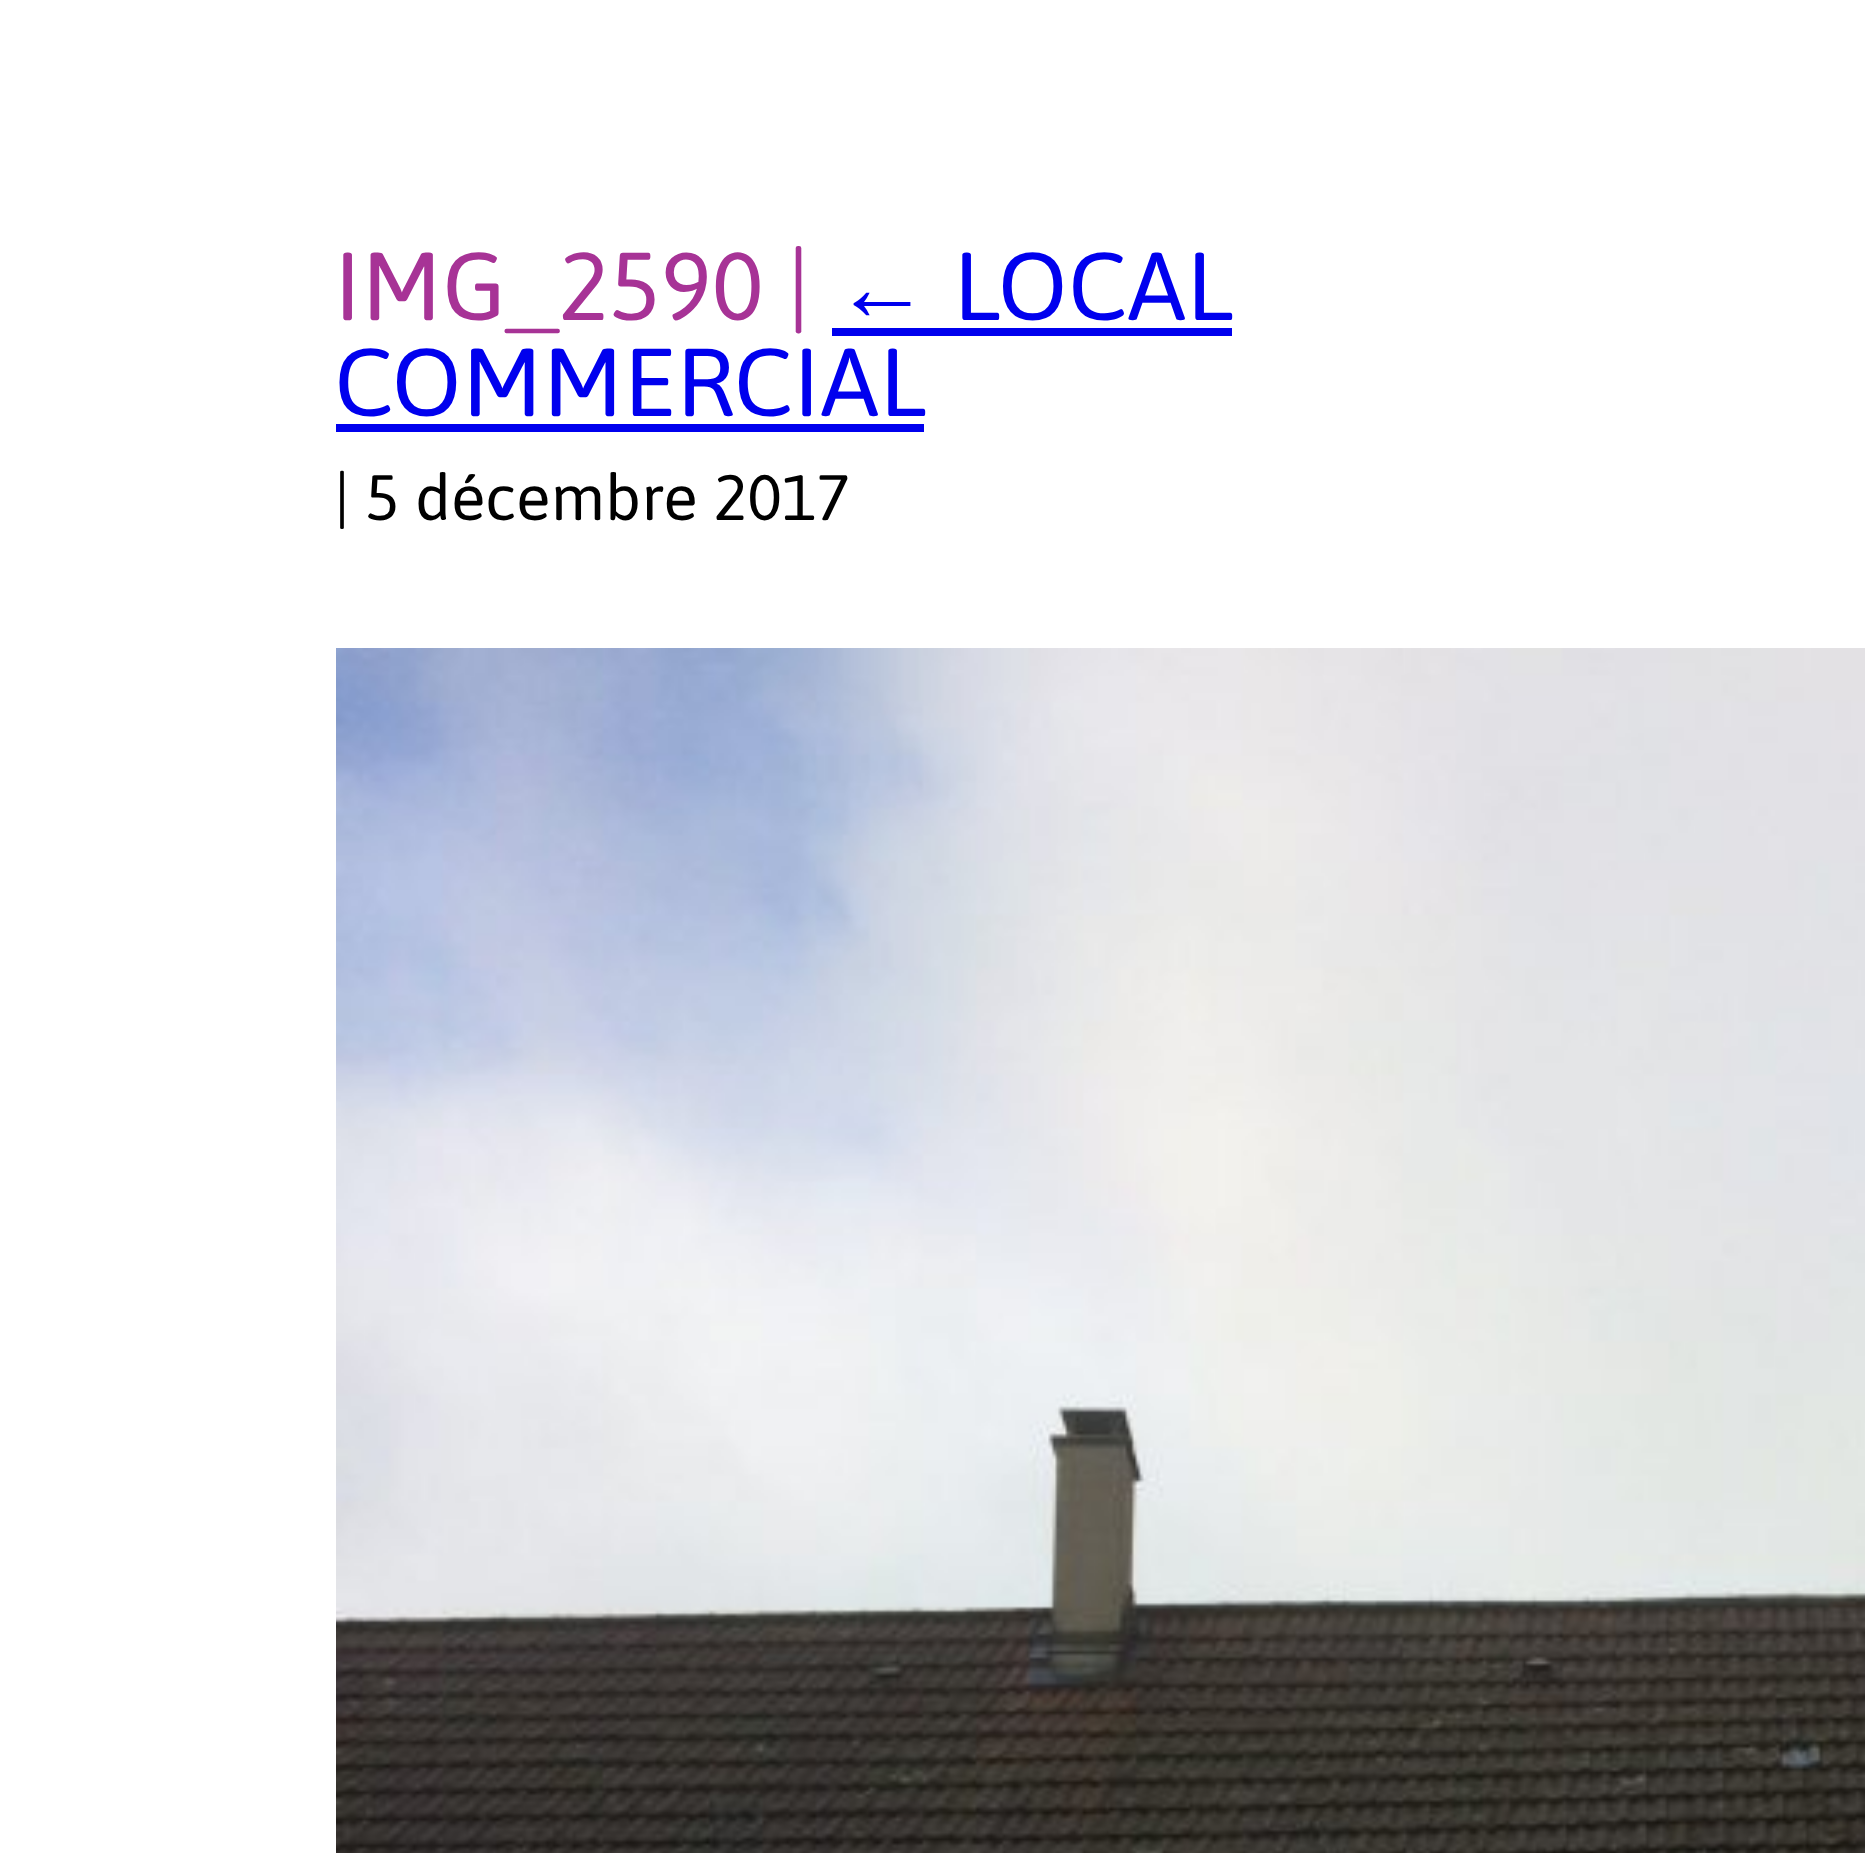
<svg xmlns="http://www.w3.org/2000/svg" width="1865" height="1853" viewBox="0 0 1865 1853">
  <rect width="100%" height="100%" fill="#fff"/>
  <path d="M832 328h400v8H832z" fill="#00e"/>
  <path d="M336 424h588v8H336z" fill="#00e"/>
  <image x="336" y="648" width="1529" height="1205" href="img/1.png"/>
  <text x="334" y="320" font-family="Asap" font-size="96" fill="#a73396">IMG_2590 |</text>
  <text x="834" y="320" font-family="Liberation Sans" font-size="96" fill="#00e">←</text>
  <g font-family="Asap" font-size="96" fill="#00e">
    <text x="953" y="320">LOCAL</text>
    <text x="334" y="416">COMMERCIAL</text>
  </g>
  <text x="334" y="520" font-family="Asap" font-size="64" fill="#000">| 5 décembre 2017</text>
</svg>
